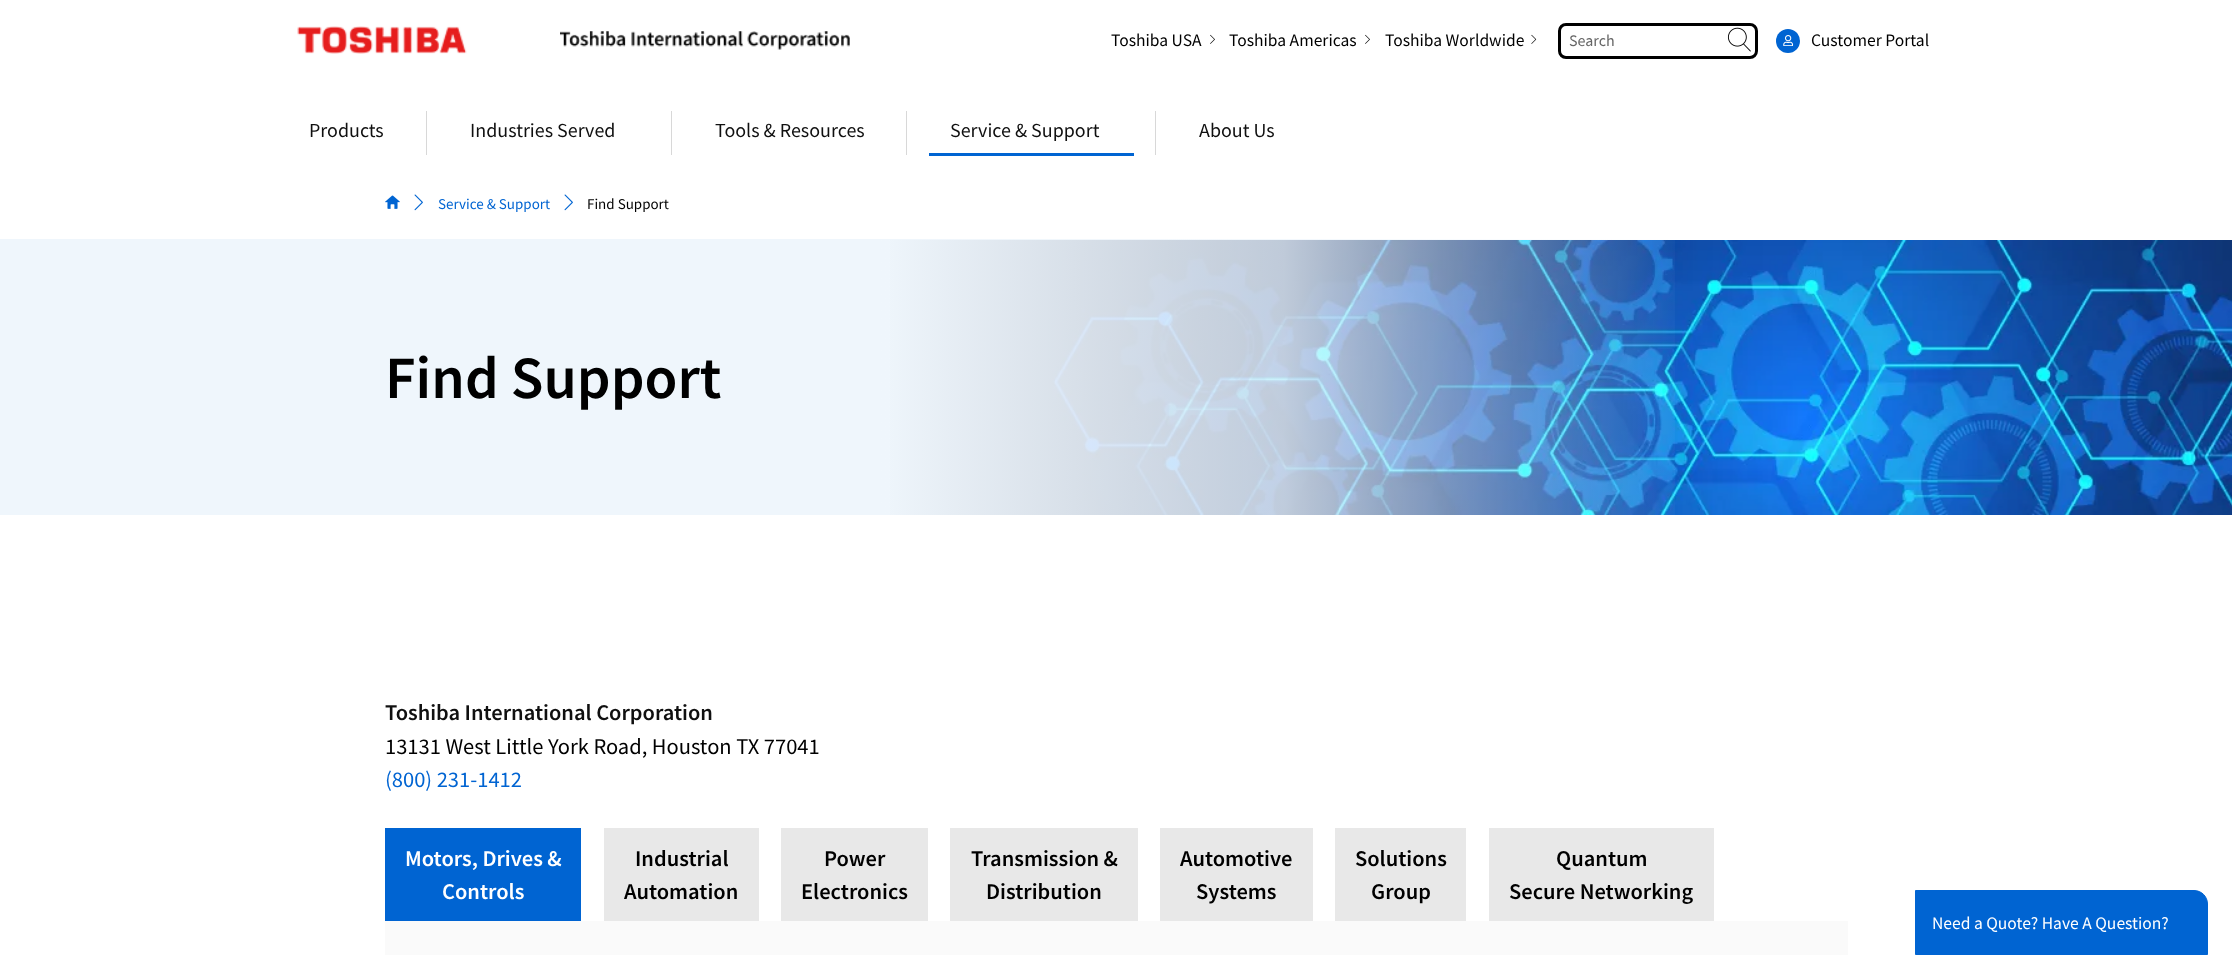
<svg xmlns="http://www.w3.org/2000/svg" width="2232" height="955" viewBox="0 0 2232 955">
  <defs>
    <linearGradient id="g1" gradientUnits="userSpaceOnUse" x1="0" y1="377" x2="1689" y2="377"><stop offset="0.52" stop-color="#eff6fc"/><stop offset="0.76" stop-color="#eff6fc" stop-opacity="0.79"/><stop offset="1" stop-color="#eff6fc" stop-opacity="0"/></linearGradient>
  </defs>
  <rect width="100%" height="100%" fill="#fff"/>
  <image x="297" y="26" width="170" height="28" href="img/1.png"/>
  <image x="560" y="31" width="290" height="19" href="img/2.png"/>
  <image x="1210" y="34" width="5" height="10" href="img/3.png"/>
  <image x="1365" y="34" width="5" height="10" href="img/3.png"/>
  <image x="1531" y="34" width="6" height="10" href="img/4.png"/>
  <rect x="1559.5" y="24.5" width="197" height="33" rx="6.5" fill="none" stroke="#000" stroke-width="3"/>
  <image x="1727" y="27" width="24" height="25" href="img/5.png"/>
  <circle cx="1788" cy="41" r="12" fill="#0064d2"/>
  <image x="1783" y="35" width="11" height="11" href="img/6.png"/>
  <path d="M426 111h1v44H426z" fill="#d8d8d8"/>
  <path d="M671 111h1v44H671z" fill="#d8d8d8"/>
  <path d="M906 111h1v44H906z" fill="#d8d8d8"/>
  <path d="M929 153h205v3H929z" fill="#0064d2"/>
  <path d="M1155 111h1v44H1155z" fill="#d8d8d8"/>
  <image x="385" y="195" width="15" height="14" href="img/7.png"/>
  <image x="414" y="194" width="9" height="17" href="img/8.png"/>
  <image x="564" y="194" width="9" height="17" href="img/8.png"/>
  <image x="890" y="240" width="1342" height="275" href="img/9.png"/>
  <path d="M0 239h1675v276H0z" fill="url(#g1)"/>
  <path d="M385 828h196v93H385z" fill="#0064d2"/>
  <path d="M604 828h155v93H604z" fill="#e8e8e8"/>
  <path d="M781 828h147v93H781z" fill="#e8e8e8"/>
  <path d="M950 828h188v93H950z" fill="#e8e8e8"/>
  <path d="M1160 828h153v93H1160z" fill="#e8e8e8"/>
  <path d="M1335 828h131v93H1335z" fill="#e8e8e8"/>
  <path d="M1489 828h225v93H1489z" fill="#e8e8e8"/>
  <path d="M385 921h1463v34H385z" fill="#fafafa"/>
  <path d="M1915.5 890.5H2194C2201.5 890.5 2207.5 896.5 2207.5 904V954.5H1915.5Z" fill="#0064d2" stroke="#0064d2"/>
  <g font-family="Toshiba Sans" font-size="17.5" fill="#000">
    <text x="1111" y="46">Toshiba USA</text>
    <text x="1229" y="46">Toshiba Americas</text>
    <text x="1385" y="46">Toshiba Worldwide</text>
  </g>
  <text x="1569" y="46" font-family="Toshiba Sans" font-size="16" fill="#666">Search</text>
  <text x="1811" y="46" font-family="Toshiba Sans" font-size="17.5" fill="#000">Customer Portal</text>
  <g font-family="Toshiba Sans" font-size="20" fill="#101010">
    <text x="309" y="137">Products</text>
    <text x="470" y="137">Industries Served</text>
    <text x="715" y="137">Tools &amp; Resources</text>
    <text x="950" y="137">Service &amp; Support</text>
    <text x="1199" y="137">About Us</text>
  </g>
  <text x="438" y="209" font-family="Toshiba Sans" font-size="15" fill="#0064d2">Service &amp; Support</text>
  <text x="587" y="209" font-family="Toshiba Sans" font-size="15" fill="#000">Find Support</text>
  <text x="385" y="398" font-family="Toshiba Sans" font-size="60" font-weight="500" fill="#000">Find Support</text>
  <text x="385" y="720" font-family="Toshiba Sans" font-size="22.5" font-weight="500" fill="#101010">Toshiba International Corporation</text>
  <text x="385" y="754" font-family="Toshiba Sans" font-size="22.5" fill="#000">13131 West Little York Road, Houston TX 77041</text>
  <text x="385" y="787" font-family="Toshiba Sans" font-size="22.5" fill="#0064d2">(800) 231-1412</text>
  <g font-family="Toshiba Sans" font-size="22.5" font-weight="500" fill="#fff">
    <text x="405" y="866">Motors, Drives &amp;</text>
    <text x="442" y="899">Controls</text>
  </g>
  <g font-family="Toshiba Sans" font-size="22.5" font-weight="500" fill="#000">
    <text x="635" y="866">Industrial</text>
    <text x="624" y="899">Automation</text>
    <text x="824" y="866">Power</text>
    <text x="801" y="899">Electronics</text>
    <text x="971" y="866">Transmission &amp;</text>
    <text x="986" y="899">Distribution</text>
    <text x="1180" y="866">Automotive</text>
    <text x="1196" y="899">Systems</text>
    <text x="1355" y="866">Solutions</text>
    <text x="1371" y="899">Group</text>
    <text x="1556" y="866">Quantum</text>
    <text x="1509" y="899">Secure Networking</text>
  </g>
  <text x="1932" y="929" font-family="Toshiba Sans" font-size="17.5" fill="#fff">Need a Quote? Have A Question?</text>
</svg>
